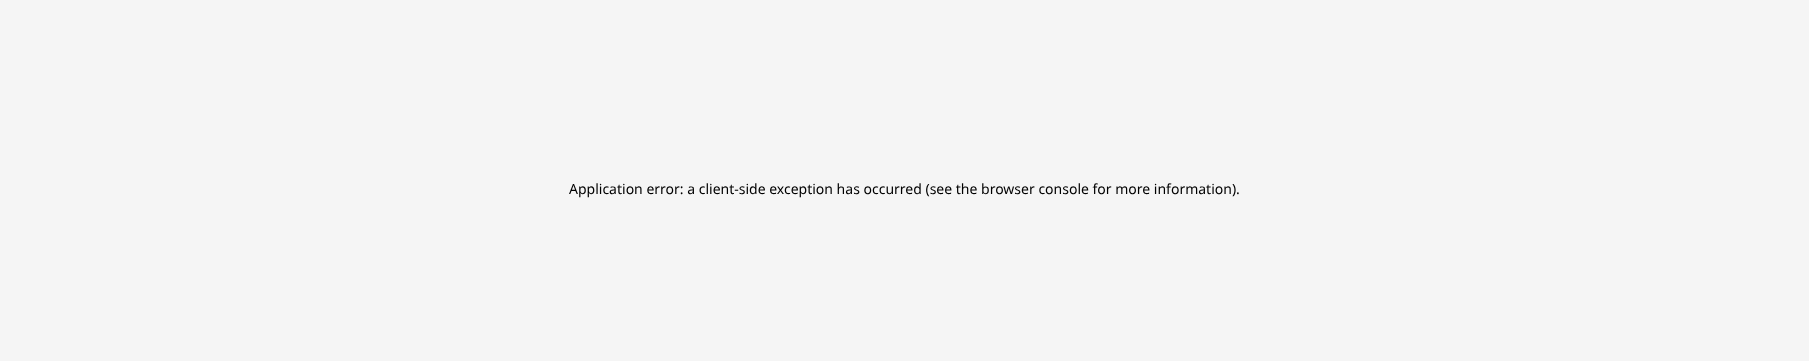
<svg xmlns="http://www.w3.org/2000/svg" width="1809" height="361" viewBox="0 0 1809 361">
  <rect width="100%" height="100%" fill="#f5f5f5"/>
  <text x="569" y="194" font-family="Noto Sans" font-size="14" fill="#000">Application error: a client-side exception has occurred (see the browser console for more information).</text>
</svg>
